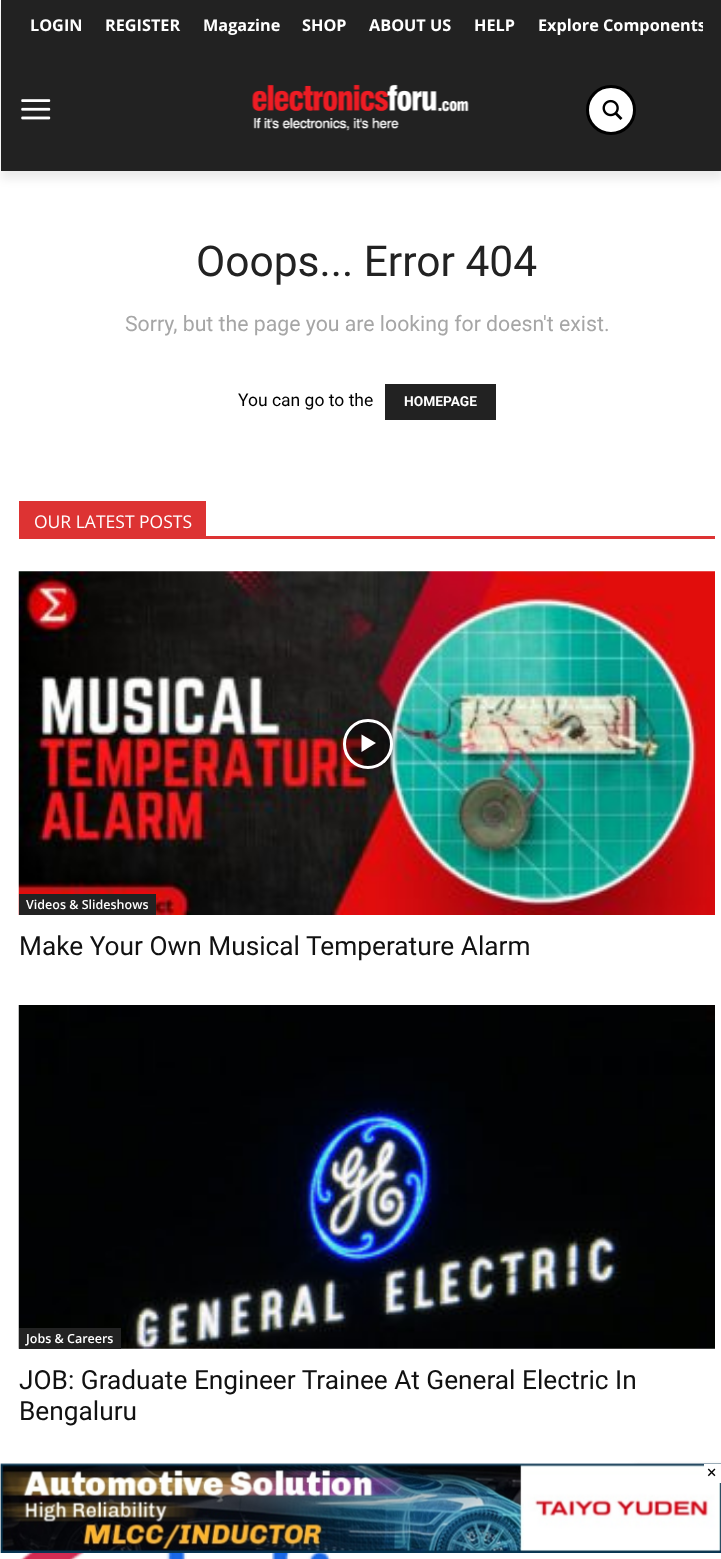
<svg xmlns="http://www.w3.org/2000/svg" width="721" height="1559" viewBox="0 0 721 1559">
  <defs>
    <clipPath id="clip1"><path d="M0 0H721V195H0ZM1 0H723V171H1Z" clip-rule="evenodd"/></clipPath>
    <clipPath id="clip2"><path d="M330 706H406V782H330ZM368 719C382 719 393 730 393 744C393 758 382 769 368 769C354 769 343 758 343 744C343 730 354 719 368 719Z" clip-rule="evenodd"/></clipPath>
    <clipPath id="clip3"><path d="M19 0h684v51H19z"/></clipPath>
  </defs>
  <rect width="100%" height="100%" fill="#fff"/>
  <path d="M1 0h720v171H1z" fill="#222"/>
  <image x="21" y="99" width="30" height="21" href="img/1.png"/>
  <image x="251" y="84" width="218" height="47" href="img/2.png"/>
  <g clip-path="url(#clip1)">
    <path d="M1 8h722v171H1z" fill="#00000014" filter="blur(5px)"/>
  </g>
  <circle cx="611" cy="110" r="23.5" fill="#fff" stroke="#000" stroke-width="3"/>
  <image x="602" y="99" width="21" height="21" href="img/3.png"/>
  <path d="M385 384h111v36H385z" fill="#222"/>
  <path d="M19 536h696v3H19z" fill="#d33"/>
  <path d="M19 501h187v35H19z" fill="#d33"/>
  <image x="18" y="571" width="697" height="344" href="img/4.png"/>
  <g clip-path="url(#clip2)">
    <rect x="343" y="719" width="50" height="50" rx="25" fill="#00000066" filter="blur(4px)"/>
  </g>
  <circle cx="368" cy="744" r="23.5" fill="#0000007a" stroke="#fff" stroke-width="3"/>
  <path d="M361.5 734.5V752L376 743Z" fill="#fff"/>
  <path d="M19 894h137v21H19z" fill="#222"/>
  <image x="18" y="1005" width="697" height="344" href="img/5.png"/>
  <path d="M19 1328h102v21H19z" fill="#222"/>
  <image x="20" y="1553" width="373" height="6" href="img/6.png"/>
  <rect x="634" y="1468" width="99" height="75" rx="2.5" fill="#808080" filter="blur(3px)"/>
  <image x="0" y="1463" width="721" height="90" href="img/7.png"/>
  <path d="M704 1464h17v19H704z" fill="#fff"/>
  <g font-family="Open Sans" font-size="16.25" font-weight="bold" fill="#fff">
    <text x="30" y="31">LOGIN</text>
    <text x="105" y="31">REGISTER</text>
    <text x="203" y="31">Magazine</text>
    <text x="302" y="31">SHOP</text>
    <text x="369" y="31">ABOUT US</text>
    <text x="474" y="31">HELP</text>
  </g>
  <g clip-path="url(#clip3)">
    <text x="538" y="31" font-family="Open Sans" font-size="16.25" font-weight="bold" fill="#fff">Explore Components</text>
  </g>
  <text x="196" y="276" font-family="Roboto" font-size="42.5" fill="#222">Ooops... Error 404</text>
  <text x="125" y="331" font-family="Roboto" font-size="21.25" fill="#a6a6a6">Sorry, but the page you are looking for doesn't exist.</text>
  <text x="238" y="406" font-family="Roboto" font-size="17.5" fill="#000">You can go to the</text>
  <text x="404" y="406" font-family="Roboto" font-size="13.75" font-weight="bold" fill="#fff">HOMEPAGE</text>
  <text x="34" y="528" font-family="Open Sans" font-size="17.5" fill="#fff">OUR LATEST POSTS</text>
  <text x="26" y="909" font-family="Open Sans" font-size="12.5" font-weight="600" fill="#fff">Videos &amp; Slideshows</text>
  <text x="19" y="955" font-family="Roboto" font-size="26.25" fill="#111">Make Your Own Musical Temperature Alarm</text>
  <text x="26" y="1343" font-family="Open Sans" font-size="12.5" font-weight="600" fill="#fff">Jobs &amp; Careers</text>
  <g font-family="Roboto" font-size="26.25" fill="#111">
    <text x="19" y="1389">JOB: Graduate Engineer Trainee At General Electric In</text>
    <text x="19" y="1420">Bengaluru</text>
  </g>
  <text x="707" y="1478" font-family="Roboto" font-size="17.5" fill="#000">×</text>
</svg>
